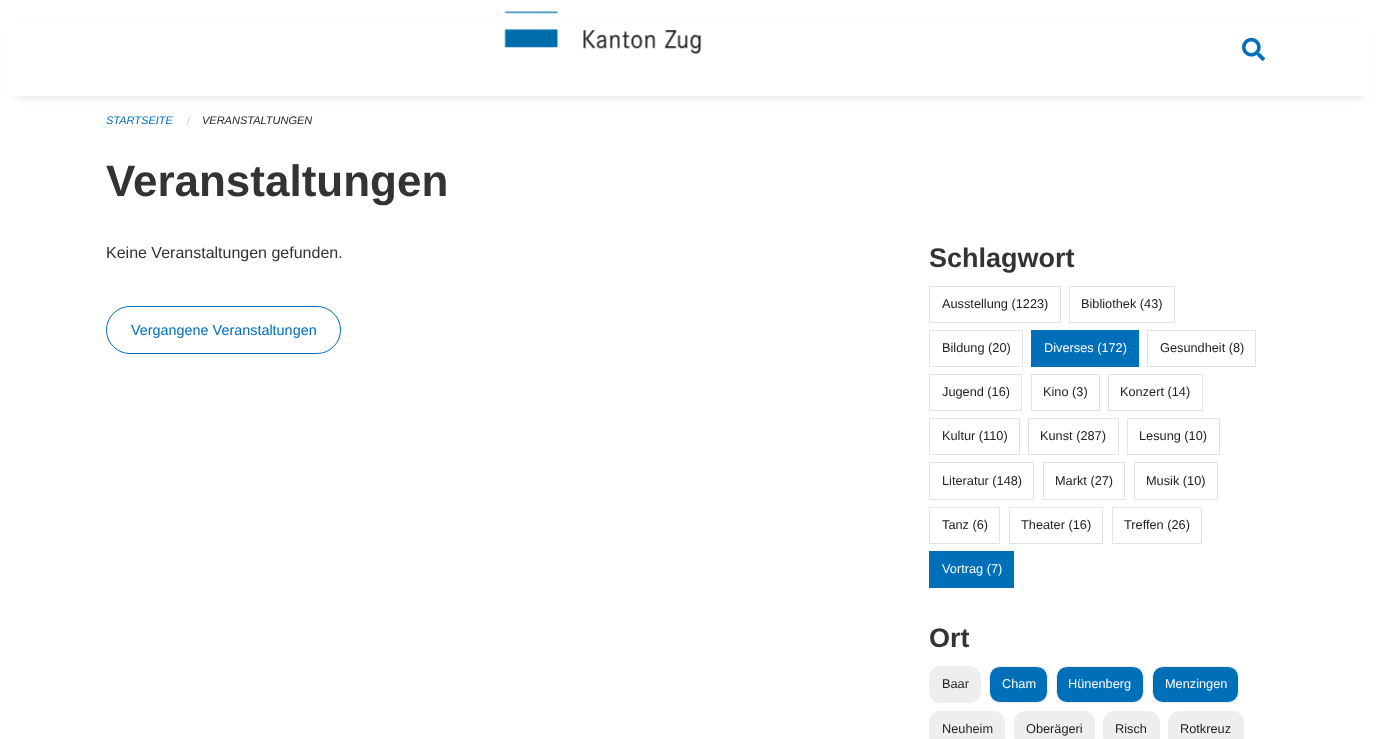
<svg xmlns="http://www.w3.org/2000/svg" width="1379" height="739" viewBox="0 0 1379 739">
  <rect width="100%" height="100%" fill="#fff"/>
  <path d="M15 30h1349v66H15z" fill="#00000026" filter="blur(5px)"/>
  <path d="M8 23h1363v73H8z" fill="#fff"/>
  <image x="504" y="11" width="198" height="44" href="img/1.png"/>
  <image x="1242" y="37" width="23" height="24" href="img/2.png"/>
  <rect x="106.5" y="306.5" width="234" height="47" rx="23.5" fill="none" stroke="#006fba"/>
  <path d="M929.5 286.5h131v36H929.5z" fill="none" stroke="#e0e3e5"/>
  <path d="M1069.5 286.5h105v36H1069.5z" fill="none" stroke="#e0e3e5"/>
  <path d="M929.5 330.5h93v36H929.5z" fill="none" stroke="#e0e3e5"/>
  <path d="M1031 330h108v37H1031z" fill="#006fba"/>
  <path d="M1147.5 330.5h108v36H1147.5z" fill="none" stroke="#e0e3e5"/>
  <path d="M929.5 374.5h92v36H929.5z" fill="none" stroke="#e0e3e5"/>
  <path d="M1031.5 374.5h68v36H1031.5z" fill="none" stroke="#e0e3e5"/>
  <path d="M1108.5 374.5h94v36H1108.5z" fill="none" stroke="#e0e3e5"/>
  <path d="M929.5 418.5h90v36H929.5z" fill="none" stroke="#e0e3e5"/>
  <path d="M1028.5 418.5h90v36H1028.5z" fill="none" stroke="#e0e3e5"/>
  <path d="M1127.5 418.5h92v36H1127.5z" fill="none" stroke="#e0e3e5"/>
  <path d="M929.5 462.5h104v37H929.5z" fill="none" stroke="#e0e3e5"/>
  <path d="M1043.5 462.5h81v37H1043.5z" fill="none" stroke="#e0e3e5"/>
  <path d="M1134.5 462.5h83v37H1134.5z" fill="none" stroke="#e0e3e5"/>
  <path d="M929.5 507.5h70v36H929.5z" fill="none" stroke="#e0e3e5"/>
  <path d="M1009.5 507.5h93v36H1009.5z" fill="none" stroke="#e0e3e5"/>
  <path d="M1112.5 507.5h89v36H1112.5z" fill="none" stroke="#e0e3e5"/>
  <path d="M929 551h85v37H929z" fill="#006fba"/>
  <rect x="929.5" y="666.5" width="51" height="36" rx="10.5" fill="#eee" stroke="#eee"/>
  <rect x="989.5" y="666.5" width="58" height="36" rx="10.5" fill="#006fba" stroke="#eee"/>
  <rect x="1056.5" y="666.5" width="87" height="36" rx="10.5" fill="#006fba" stroke="#eee"/>
  <rect x="1152.5" y="666.5" width="86" height="36" rx="10.5" fill="#006fba" stroke="#eee"/>
  <rect x="929.5" y="711.5" width="75" height="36" rx="10.5" fill="#eee" stroke="#eee"/>
  <rect x="1014.5" y="711.5" width="80" height="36" rx="10.5" fill="#eee" stroke="#eee"/>
  <rect x="1103.5" y="711.5" width="56" height="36" rx="10.5" fill="#eee" stroke="#eee"/>
  <rect x="1168.5" y="711.5" width="75" height="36" rx="10.5" fill="#eee" stroke="#eee"/>
  <text x="106" y="124" font-family="Liberation Sans" font-size="11" font-style="italic" fill="#006fba">STARTSEITE</text>
  <text x="187" y="124" font-family="Liberation Sans" font-size="11" font-style="italic" fill="#cacaca">/</text>
  <text x="202" y="124" font-family="Liberation Sans" font-size="11" font-style="italic" fill="#222">VERANSTALTUNGEN</text>
  <text x="106" y="196" font-family="Liberation Sans" font-size="44" font-weight="bold" fill="#333">Veranstaltungen</text>
  <text x="106" y="258" font-family="Liberation Sans" font-size="16" fill="#333">Keine Veranstaltungen gefunden.</text>
  <text x="131" y="335" font-family="Liberation Sans" font-size="14.4" fill="#006fba">Vergangene Veranstaltungen</text>
  <text x="929" y="267" font-family="Liberation Sans" font-size="27" font-weight="bold" fill="#333">Schlagwort</text>
  <g font-family="Liberation Sans" font-size="12.75" fill="#222">
    <text x="942" y="308">Ausstellung (1223)</text>
    <text x="1081" y="308">Bibliothek (43)</text>
    <text x="942" y="352">Bildung (20)</text>
  </g>
  <text x="1044" y="352" font-family="Liberation Sans" font-size="12.75" fill="#fff">Diverses (172)</text>
  <g font-family="Liberation Sans" font-size="12.75" fill="#222">
    <text x="1160" y="352">Gesundheit (8)</text>
    <text x="942" y="396">Jugend (16)</text>
    <text x="1043" y="396">Kino (3)</text>
    <text x="1120" y="396">Konzert (14)</text>
    <text x="942" y="440">Kultur (110)</text>
    <text x="1040" y="440">Kunst (287)</text>
    <text x="1139" y="440">Lesung (10)</text>
    <text x="942" y="485">Literatur (148)</text>
    <text x="1055" y="485">Markt (27)</text>
    <text x="1146" y="485">Musik (10)</text>
    <text x="942" y="529">Tanz (6)</text>
    <text x="1021" y="529">Theater (16)</text>
    <text x="1124" y="529">Treffen (26)</text>
  </g>
  <text x="942" y="573" font-family="Liberation Sans" font-size="12.75" fill="#fff">Vortrag (7)</text>
  <text x="929" y="647" font-family="Liberation Sans" font-size="27" font-weight="bold" fill="#333">Ort</text>
  <text x="942" y="688" font-family="Liberation Sans" font-size="12.75" fill="#222">Baar</text>
  <g font-family="Liberation Sans" font-size="12.75" fill="#fff">
    <text x="1002" y="688">Cham</text>
    <text x="1068" y="688">Hünenberg</text>
    <text x="1165" y="688">Menzingen</text>
  </g>
  <g font-family="Liberation Sans" font-size="12.75" fill="#222">
    <text x="942" y="733">Neuheim</text>
    <text x="1026" y="733">Oberägeri</text>
    <text x="1115" y="733">Risch</text>
    <text x="1180" y="733">Rotkreuz</text>
  </g>
</svg>
